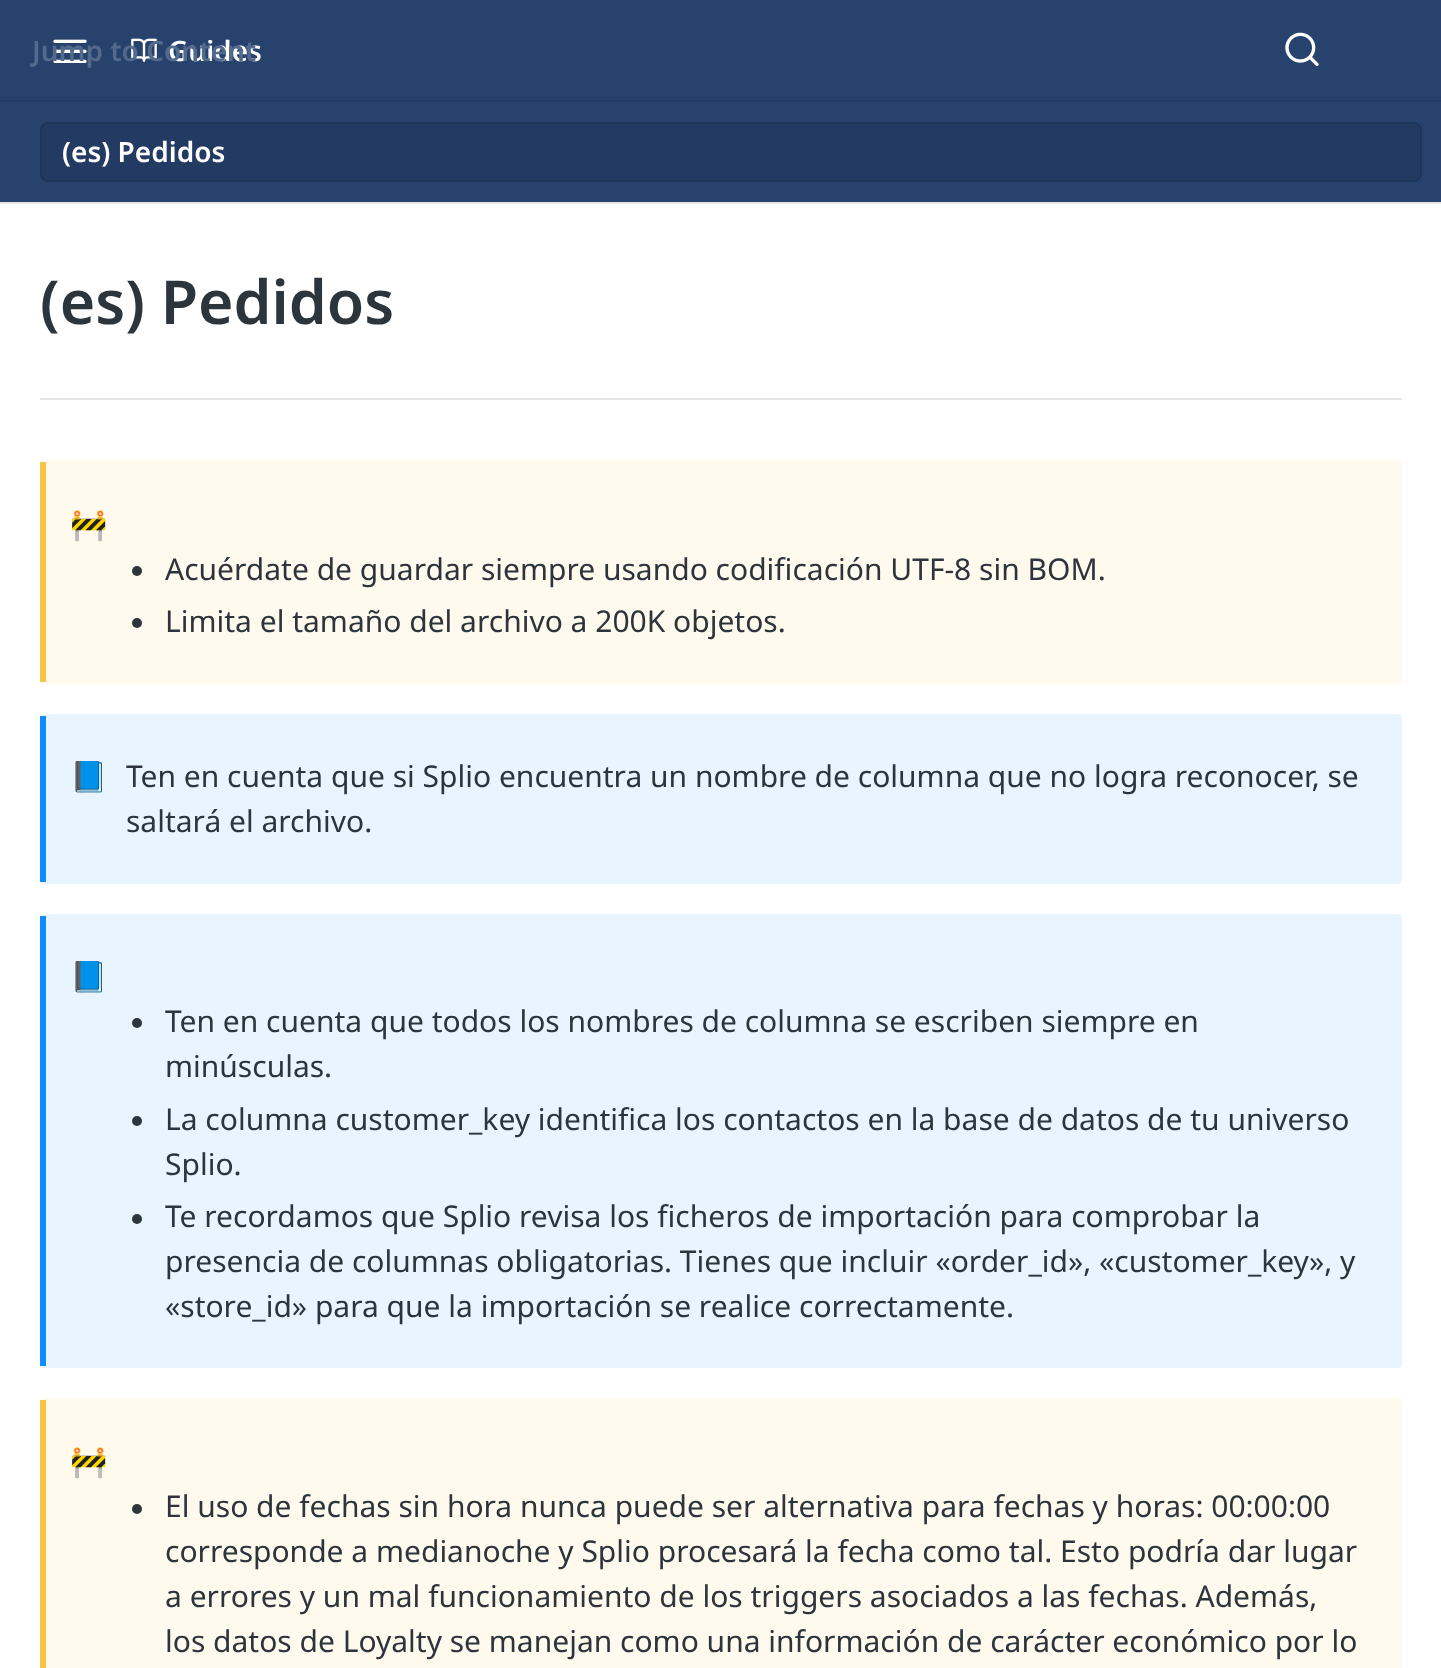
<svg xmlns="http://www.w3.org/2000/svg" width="1441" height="1668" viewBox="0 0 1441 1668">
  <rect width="100%" height="100%" fill="#fff"/>
  <path d="M0 202h1441v2H0z" fill="#e6e6e6"/>
  <path d="M0 0h1441v202H0z" fill="#27426d"/>
  <path d="M0 100h1441v2H0z" fill="#233b62"/>
  <image x="53" y="39" width="34" height="24" href="img/1.png"/>
  <image x="131" y="38" width="26" height="24" href="img/2.png"/>
  <image x="1285" y="32" width="34" height="34" href="img/3.png"/>
  <rect x="40" y="122" width="1382" height="60" rx="8" fill="#233b62"/>
  <rect x="41" y="123" width="1380" height="58" rx="7" fill="none" stroke="#0000001a" stroke-width="2"/>
  <path d="M40 398h1362v2H40z" fill="#e6e6e6"/>
  <rect x="40" y="460" width="1362" height="224" rx="4" fill="#fffaed"/>
  <path d="M40 462h6v220H40z" fill="#f7c543"/>
  <circle cx="137" cy="571" r="5" fill="#2b353b"/>
  <circle cx="137" cy="623" r="5" fill="#2b353b"/>
  <rect x="40" y="714" width="1362" height="170" rx="4" fill="#e8f4ff"/>
  <path d="M40 716h6v166H40z" fill="#118cfd"/>
  <rect x="40" y="914" width="1362" height="454" rx="4" fill="#e8f4ff"/>
  <path d="M40 916h6v450H40z" fill="#118cfd"/>
  <circle cx="137" cy="1023" r="5" fill="#2b353b"/>
  <circle cx="137" cy="1121" r="5" fill="#2b353b"/>
  <circle cx="137" cy="1219" r="5" fill="#2b353b"/>
  <path d="M44 1398H1398C1400 1398 1402 1400 1402 1402V1668H40V1402C40 1400 42 1398 44 1398Z" fill="#fffaed"/>
  <path d="M40 1400h6v268H40z" fill="#f7c543"/>
  <circle cx="137" cy="1509" r="5" fill="#2b353b"/>
  <text x="168" y="61" font-family="Noto Sans" font-size="28" font-weight="600" fill="#fff">Guides</text>
  <text x="32" y="61" font-family="Noto Sans" font-size="28" font-weight="600" fill="#546a8c">Jump to Content</text>
  <text x="62" y="162" font-family="Noto Sans" font-size="28" font-weight="600" fill="#fff">(es) Pedidos</text>
  <text x="40" y="324" font-family="Noto Sans" font-size="60.75" font-weight="600" fill="#2b353b">(es) Pedidos</text>
  <text x="70" y="535" font-family="Noto Color Emoji" font-size="30" fill="#2b353b">🚧</text>
  <g font-family="Noto Sans" font-size="30" fill="#2b353b">
    <text x="165" y="580">Acuérdate de guardar siempre usando codificación UTF-8 sin BOM.</text>
    <text x="165" y="632">Limita el tamaño del archivo a 200K objetos.</text>
  </g>
  <text x="70" y="787" font-family="Noto Color Emoji" font-size="30" fill="#2b353b">📘</text>
  <g font-family="Noto Sans" font-size="30" fill="#2b353b">
    <text x="126" y="787">Ten en cuenta que si Splio encuentra un nombre de columna que no logra reconocer, se</text>
    <text x="126" y="832">saltará el archivo.</text>
  </g>
  <text x="70" y="987" font-family="Noto Color Emoji" font-size="30" fill="#2b353b">📘</text>
  <g font-family="Noto Sans" font-size="30" fill="#2b353b">
    <text x="165" y="1032">Ten en cuenta que todos los nombres de columna se escriben siempre en</text>
    <text x="165" y="1077">minúsculas.</text>
    <text x="165" y="1130">La columna customer_key identifica los contactos en la base de datos de tu universo</text>
    <text x="165" y="1175">Splio.</text>
    <text x="165" y="1227">Te recordamos que Splio revisa los ficheros de importación para comprobar la</text>
    <text x="165" y="1272">presencia de columnas obligatorias. Tienes que incluir «order_id», «customer_key», y</text>
    <text x="165" y="1317">«store_id» para que la importación se realice correctamente.</text>
  </g>
  <text x="70" y="1472" font-family="Noto Color Emoji" font-size="30" fill="#2b353b">🚧</text>
  <g font-family="Noto Sans" font-size="30" fill="#2b353b">
    <text x="165" y="1517">El uso de fechas sin hora nunca puede ser alternativa para fechas y horas: 00:00:00</text>
    <text x="165" y="1562">corresponde a medianoche y Splio procesará la fecha como tal. Esto podría dar lugar</text>
    <text x="165" y="1607">a errores y un mal funcionamiento de los triggers asociados a las fechas. Además,</text>
    <text x="165" y="1652">los datos de Loyalty se manejan como una información de carácter económico por lo</text>
  </g>
</svg>
